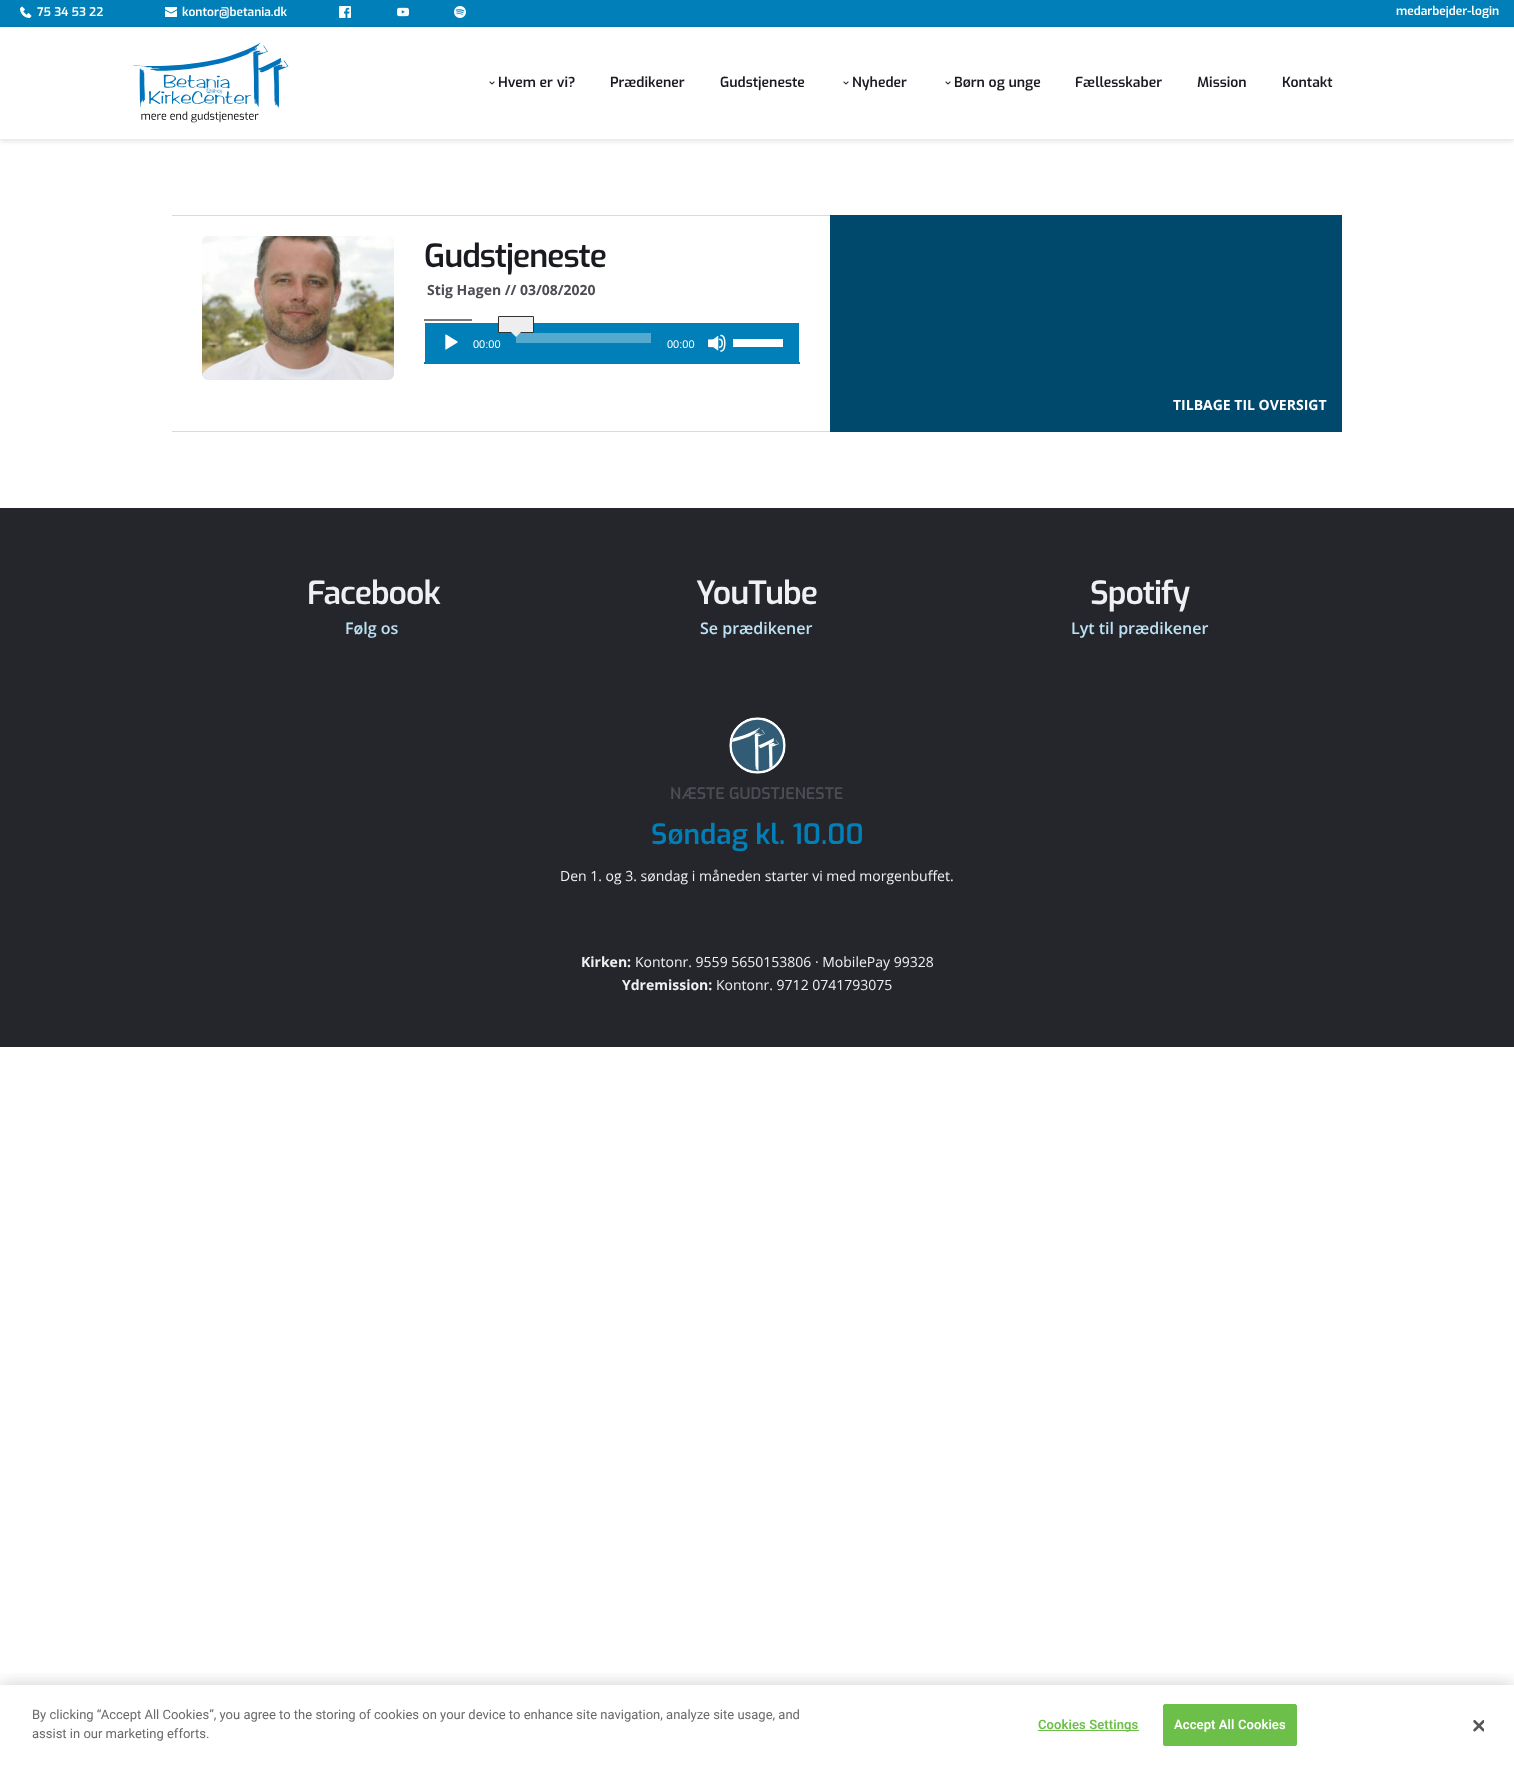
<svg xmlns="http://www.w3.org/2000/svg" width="1514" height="1767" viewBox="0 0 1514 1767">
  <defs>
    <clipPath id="clip1"><path d="M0 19H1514V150H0ZM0 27H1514V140H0Z" clip-rule="evenodd"/></clipPath>
    <clipPath id="clip2"><path d="M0 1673h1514v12H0z"/></clipPath>
  </defs>
  <rect width="100%" height="100%" fill="#fff"/>
  <path d="M0 0h1514v27H0z" fill="#007fb8"/>
  <image x="20" y="6" width="12" height="12" href="img/1.png"/>
  <image x="165" y="7" width="12" height="10" href="img/2.png"/>
  <image x="339" y="6" width="12" height="12" href="img/3.png"/>
  <image x="397" y="7" width="12" height="10" href="img/4.png"/>
  <image x="454" y="6" width="12" height="12" href="img/5.png"/>
  <g clip-path="url(#clip1)">
    <path d="M0 28h1514v113H0z" fill="#0000001f" filter="blur(2.5px)"/>
  </g>
  <path d="M0 139h1514v1H0z" fill="#ededee"/>
  <image x="133" y="42" width="156" height="81" href="img/6.png"/>
  <image x="489" y="81" width="6" height="4" href="img/7.png"/>
  <image x="843" y="81" width="6" height="4" href="img/7.png"/>
  <image x="945" y="81" width="6" height="4" href="img/7.png"/>
  <path d="M172 215h658v1H172z" fill="#d9dadb"/>
  <path d="M172 431h658v1H172z" fill="#d9dadb"/>
  <image x="202" y="236" width="192" height="144" href="img/8.png"/>
  <path d="M424 319h48v2H424z" fill="#787a7e"/>
  <path d="M424 362h376v2H424z" fill="#007fb8"/>
  <path d="M425 323h374v39H425z" fill="#007fb8"/>
  <image x="445" y="334" width="13" height="16" href="img/9.png"/>
  <path d="M516 333h135v10H516z" fill="#54a9cf"/>
  <path d="M498.5 316.5h35v16H498.5z" fill="#eee" stroke="#333"/>
  <path d="M511 332H521L516 337Z" fill="#eee"/>
  <image x="708" y="334" width="18" height="18" href="img/10.png"/>
  <path d="M733 339h50v8H733z" fill="#fff"/>
  <path d="M830 215h512v217H830z" fill="#00486c"/>
  <path d="M0 508h1514v539H0z" fill="#25262c"/>
  <image x="729" y="717" width="57" height="57" href="img/11.png"/>
  <g clip-path="url(#clip2)">
    <path d="M0 1685h1514v82H0z" fill="#00000033" filter="blur(9px)"/>
  </g>
  <path d="M1038 1730h101v1H1038z" fill="#6cc04a"/>
  <rect x="1163.5" y="1704.5" width="133" height="41" rx="1.5" fill="#6cc04a" stroke="#6cc04a"/>
  <image x="1473" y="1720" width="11" height="12" href="img/12.png"/>
  <g font-family="Exo" font-size="12" font-weight="600" fill="#fff">
    <text x="37" y="16">75 34 53 22</text>
    <text x="182" y="16">kontor@betania.dk</text>
    <text x="1396" y="15">medarbejder-login</text>
  </g>
  <g font-family="Exo" font-size="14" font-weight="600" fill="#191b21">
    <text x="498" y="87">Hvem er vi?</text>
    <text x="610" y="87">Prædikener</text>
    <text x="720" y="87">Gudstjeneste</text>
    <text x="852" y="87">Nyheder</text>
    <text x="954" y="87">Børn og unge</text>
    <text x="1075" y="87">Fællesskaber</text>
    <text x="1197" y="87">Mission</text>
    <text x="1282" y="87">Kontakt</text>
  </g>
  <text x="424" y="267" font-family="Exo" font-size="32" font-weight="600" letter-spacing="-1" fill="#191b21">Gudstjeneste</text>
  <text x="427" y="295" font-family="Open Sans" font-size="14" font-weight="bold" fill="#4b4d53">Stig Hagen // 03/08/2020</text>
  <g font-family="Liberation Sans" font-size="11" fill="#fff">
    <text x="473" y="348">00:00</text>
    <text x="667" y="348">00:00</text>
  </g>
  <text x="1173" y="410" font-family="Open Sans" font-size="14" font-weight="bold" fill="#fff">TILBAGE TIL OVERSIGT</text>
  <text x="307" y="604" font-family="Exo" font-size="32" font-weight="600" letter-spacing="-1" fill="#eef0f2">Facebook</text>
  <text x="345" y="634" font-family="Open Sans" font-size="16" font-weight="600" fill="#bde1f4">Følg os</text>
  <text x="696" y="604" font-family="Exo" font-size="32" font-weight="600" letter-spacing="-1" fill="#eef0f2">YouTube</text>
  <text x="700" y="634" font-family="Open Sans" font-size="16" font-weight="600" fill="#bde1f4">Se prædikener</text>
  <text x="1090" y="604" font-family="Exo" font-size="32" font-weight="600" letter-spacing="-1" fill="#eef0f2">Spotify</text>
  <text x="1071" y="634" font-family="Open Sans" font-size="16" font-weight="600" fill="#bde1f4">Lyt til prædikener</text>
  <text x="670" y="799" font-family="Exo" font-size="16" font-weight="600" fill="#4b4d53">NÆSTE GUDSTJENESTE</text>
  <text x="651" y="844" font-family="Exo" font-size="28" font-weight="600" fill="#007fb8">Søndag kl. 10.00</text>
  <text x="560" y="881" font-family="Open Sans" font-size="14" fill="#eef0f2">Den 1. og 3. søndag i måneden starter vi med morgenbuffet.</text>
  <text x="581" y="967" font-family="Open Sans" font-size="14" font-weight="bold" fill="#eef0f2">Kirken:</text>
  <text x="635" y="967" font-family="Open Sans" font-size="14" fill="#eef0f2">Kontonr. 9559 5650153806 · MobilePay 99328</text>
  <text x="622" y="990" font-family="Open Sans" font-size="14" font-weight="bold" fill="#eef0f2">Ydremission:</text>
  <text x="716" y="990" font-family="Open Sans" font-size="14" fill="#eef0f2">Kontonr. 9712 0741793075</text>
  <g font-family="Roboto" font-size="13" fill="#696969">
    <text x="32" y="1719">By clicking “Accept All Cookies”, you agree to the storing of cookies on your device to enhance site navigation, analyze site usage, and</text>
    <text x="32" y="1738">assist in our marketing efforts.</text>
  </g>
  <text x="1038" y="1729" font-family="Roboto" font-size="13" font-weight="600" letter-spacing="0.1" fill="#6cc04a">Cookies Settings</text>
  <text x="1174" y="1729" font-family="Roboto" font-size="13" font-weight="600" letter-spacing="0.1" fill="#fff">Accept All Cookies</text>
</svg>
